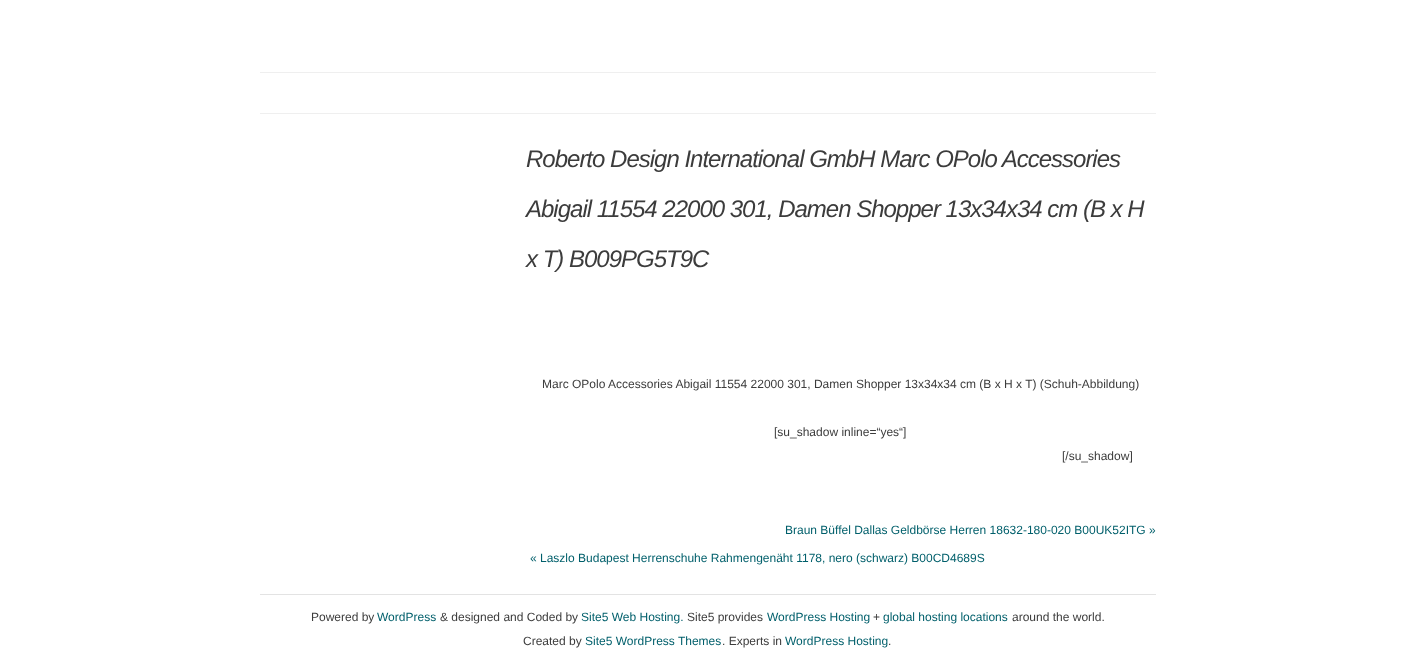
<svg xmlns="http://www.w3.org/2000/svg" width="1415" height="655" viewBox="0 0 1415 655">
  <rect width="100%" height="100%" fill="#fff"/>
  <path d="M260 72h896v1H260z" fill="#efefef"/>
  <path d="M260 113h896v1H260z" fill="#efefef"/>
  <path d="M260 594h896v1H260z" fill="#e3e3e3"/>
  <g font-family="Liberation Sans" font-size="24" font-style="italic" letter-spacing="-1" fill="#3c3c3c">
    <text x="526" y="167">Roberto Design International GmbH Marc OPolo Accessories</text>
    <text x="526" y="217">Abigail 11554 22000 301, Damen Shopper 13x34x34 cm (B x H</text>
    <text x="526" y="267">x T) B009PG5T9C</text>
  </g>
  <g font-family="Liberation Sans" font-size="12" fill="#3c3c3c">
    <text x="542" y="388">Marc OPolo Accessories Abigail 11554 22000 301, Damen Shopper 13x34x34 cm (B x H x T) (Schuh-Abbildung)</text>
    <text x="774" y="436">[su_shadow inline=“yes“]</text>
    <text x="1062" y="460">[/su_shadow]</text>
  </g>
  <g font-family="Liberation Sans" font-size="12" fill="#005f6b">
    <text x="785" y="534">Braun Büffel Dallas Geldbörse Herren 18632-180-020 B00UK52ITG »</text>
    <text x="530" y="562">« Laszlo Budapest Herrenschuhe Rahmengenäht 1178, nero (schwarz) B00CD4689S</text>
  </g>
  <text x="311" y="621" font-family="Liberation Sans" font-size="12" fill="#3c3c3c">Powered by</text>
  <text x="377" y="621" font-family="Liberation Sans" font-size="12" fill="#005f6b">WordPress</text>
  <text x="440" y="621" font-family="Liberation Sans" font-size="12" fill="#3c3c3c">&amp; designed and Coded by</text>
  <text x="581" y="621" font-family="Liberation Sans" font-size="12" fill="#005f6b">Site5 Web Hosting.</text>
  <text x="687" y="621" font-family="Liberation Sans" font-size="12" fill="#3c3c3c">Site5 provides</text>
  <text x="767" y="621" font-family="Liberation Sans" font-size="12" fill="#005f6b">WordPress Hosting</text>
  <text x="873" y="621" font-family="Liberation Sans" font-size="12" fill="#3c3c3c">+</text>
  <text x="883" y="621" font-family="Liberation Sans" font-size="12" fill="#005f6b">global hosting locations</text>
  <g font-family="Liberation Sans" font-size="12" fill="#3c3c3c">
    <text x="1012" y="621">around the world.</text>
    <text x="523" y="645">Created by</text>
  </g>
  <text x="585" y="645" font-family="Liberation Sans" font-size="12" fill="#005f6b">Site5 WordPress Themes</text>
  <text x="722" y="645" font-family="Liberation Sans" font-size="12" fill="#3c3c3c">. Experts in</text>
  <text x="785" y="645" font-family="Liberation Sans" font-size="12" fill="#005f6b">WordPress Hosting</text>
  <text x="888" y="645" font-family="Liberation Sans" font-size="12" fill="#3c3c3c">.</text>
</svg>
